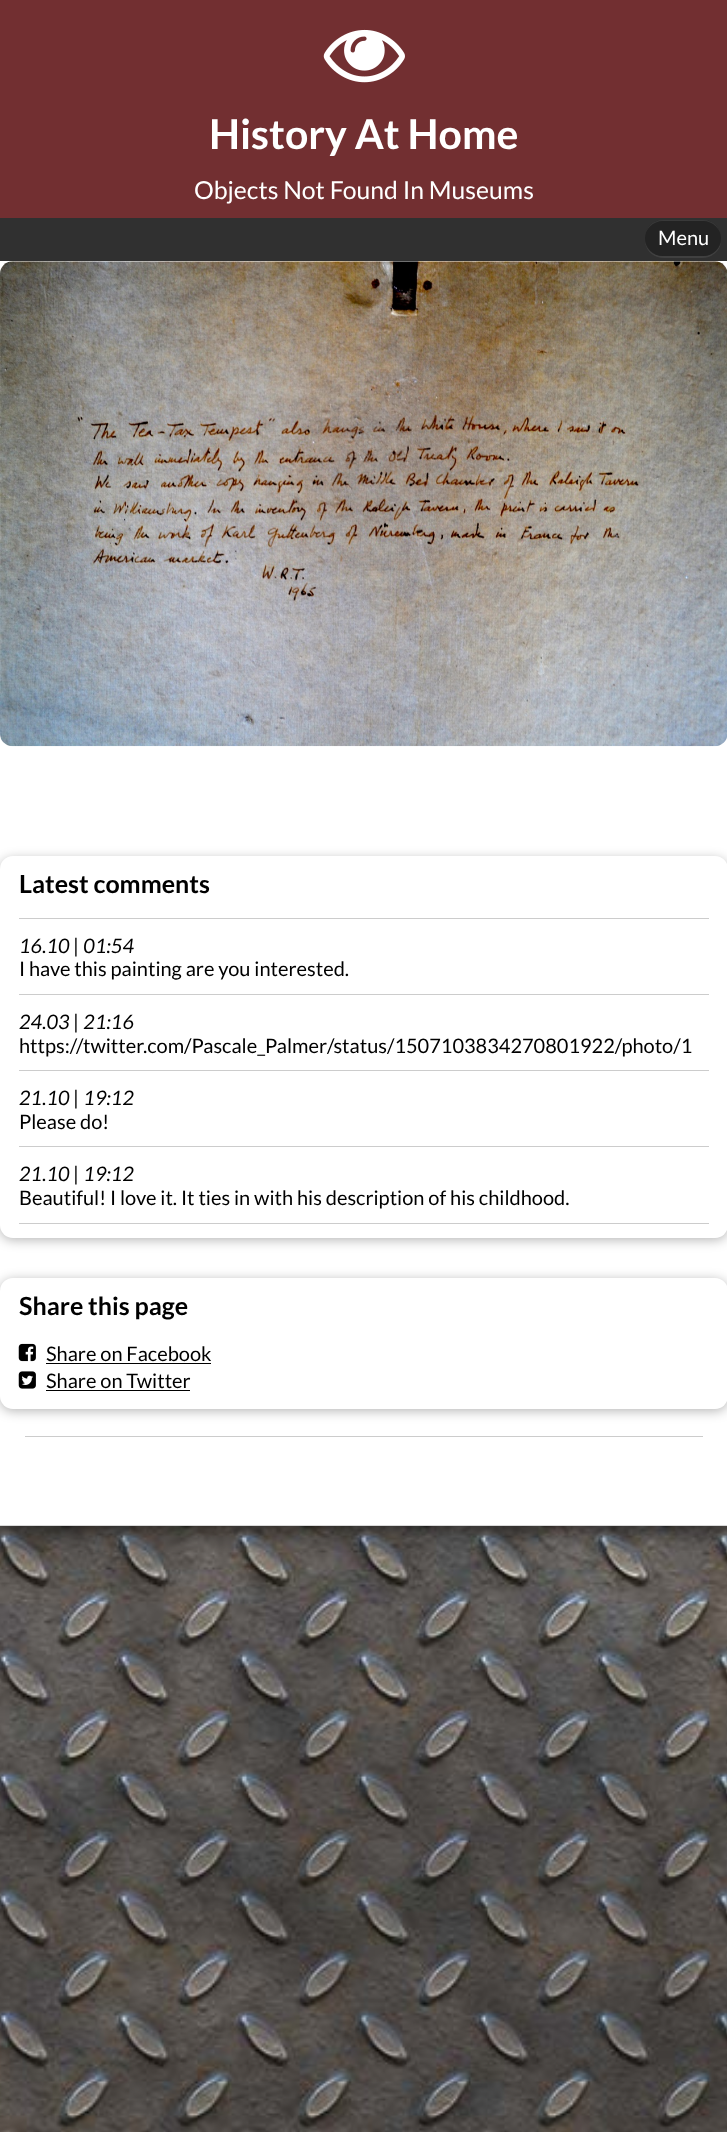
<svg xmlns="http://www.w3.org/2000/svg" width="727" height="2132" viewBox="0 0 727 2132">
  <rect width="100%" height="100%" fill="#fff"/>
  <image x="0" y="1526" width="727" height="606" href="img/1.png"/>
  <path d="M0 0h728v1526H0z" fill="#000000cc" filter="blur(15px)"/>
  <path d="M0 261h727v1264H0z" fill="#fff"/>
  <path d="M0 1525h727v1H0z" fill="#d9d9d9"/>
  <path d="M0 0h727v218H0z" fill="#722f31"/>
  <image x="323" y="29" width="82" height="54" href="img/2.png"/>
  <path d="M0 218h727v43H0z" fill="#303030"/>
  <path d="M645 239V240C645 250 653 258 664 258H702C712 258 720 251 721 242C719 250 712 256 703 256H663C653 256 645 249 645 239Z" fill="#404040"/>
  <rect x="645" y="220" width="76" height="36" rx="18" fill="#232323"/>
  <path d="M663 221H703C713 221 721 229 721 238C721 228 713 220 703 220H663C653 220 645 228 645 238C645 229 653 221 663 221Z" fill="#ffffff1a"/>
  <image x="0" y="261" width="727" height="486" href="img/3.png"/>
  <rect y="859" width="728" height="381" rx="13" fill="#0000004a" filter="blur(6px)"/>
  <rect y="856" width="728" height="382" rx="13" fill="#fff"/>
  <path d="M19 918h690v1H19z" fill="#ccc"/>
  <path d="M19 994h690v1H19z" fill="#ccc"/>
  <path d="M19 1070h690v1H19z" fill="#ccc"/>
  <path d="M19 1146h690v1H19z" fill="#ccc"/>
  <path d="M19 1223h690v1H19z" fill="#ccc"/>
  <rect y="1280" width="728" height="131" rx="13" fill="#0000004a" filter="blur(6px)"/>
  <rect y="1278" width="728" height="131" rx="13" fill="#fff"/>
  <image x="18" y="1343" width="18" height="19" href="img/4.png"/>
  <path d="M46 1363h165v1H46z" fill="#000"/>
  <image x="18" y="1371" width="18" height="18" href="img/5.png"/>
  <path d="M46 1390h144v1H46z" fill="#000"/>
  <path d="M25 1436h678v1H25z" fill="#ccc"/>
  <text x="209" y="149" font-family="Lato" font-size="41" font-weight="bold" fill="#fff">History At Home</text>
  <text x="194" y="199" font-family="Lato" font-size="24.75" fill="#fff">Objects Not Found In Museums</text>
  <text x="658" y="245" font-family="Lato" font-size="20" fill="#fff">Menu</text>
  <text x="19" y="893" font-family="Lato" font-size="25" font-weight="bold" fill="#000">Latest comments</text>
  <text x="19" y="953" font-family="Lato" font-size="20" font-style="italic" fill="#000">16.10 | 01:54</text>
  <text x="19" y="976" font-family="Lato" font-size="20" fill="#000">I have this painting are you interested.</text>
  <text x="19" y="1029" font-family="Lato" font-size="20" font-style="italic" fill="#000">24.03 | 21:16</text>
  <text x="19" y="1053" font-family="Lato" font-size="20" fill="#000">https://twitter.com/Pascale_Palmer/status/1507103834270801922/photo/1</text>
  <text x="19" y="1105" font-family="Lato" font-size="20" font-style="italic" fill="#000">21.10 | 19:12</text>
  <text x="19" y="1129" font-family="Lato" font-size="20" fill="#000">Please do!</text>
  <text x="19" y="1181" font-family="Lato" font-size="20" font-style="italic" fill="#000">21.10 | 19:12</text>
  <text x="19" y="1205" font-family="Lato" font-size="20" fill="#000">Beautiful! I love it. It ties in with his description of his childhood.</text>
  <text x="19" y="1315" font-family="Lato" font-size="25" font-weight="bold" fill="#000">Share this page</text>
  <g font-family="Lato" font-size="20" fill="#000">
    <text x="46" y="1361">Share on Facebook</text>
    <text x="46" y="1388">Share on Twitter</text>
  </g>
</svg>
